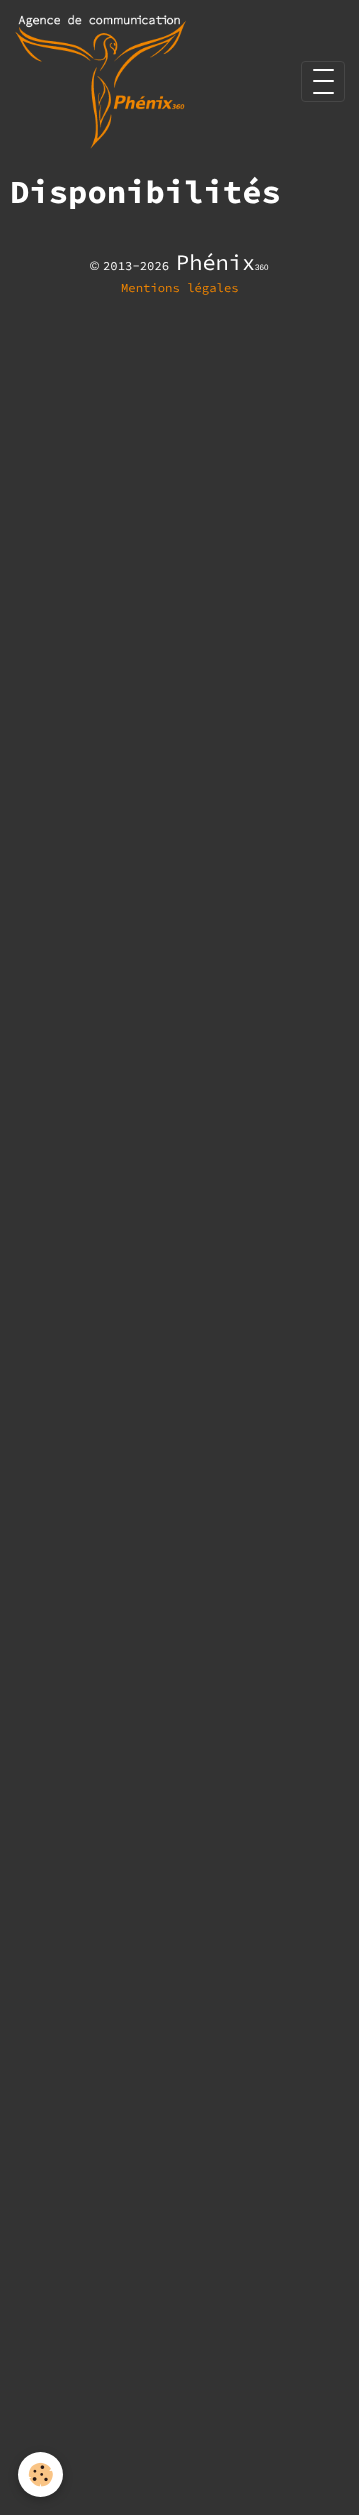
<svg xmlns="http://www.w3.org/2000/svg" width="359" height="2515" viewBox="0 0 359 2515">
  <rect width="100%" height="100%" fill="#333"/>
  <image x="15" y="14" width="171" height="135" href="img/1.png"/>
  <rect x="301.5" y="61.5" width="43" height="40" rx="3.5" fill="none" stroke="#474747"/>
  <rect x="313" y="69" width="21" height="2" rx="1" fill="#fff"/>
  <rect x="313" y="80" width="21" height="2" rx="1" fill="#fff"/>
  <rect x="313" y="92" width="21" height="2" rx="1" fill="#fff"/>
  <rect x="18" y="2455" width="45" height="45" rx="22.5" fill="#0000003d" filter="blur(5px)"/>
  <circle cx="40.5" cy="2474.5" r="22.5" fill="#fff"/>
  <image x="28" y="2462" width="25" height="25" href="img/2.png"/>
  <text x="10" y="203" font-family="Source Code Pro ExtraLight" font-size="32.25" font-weight="bold" fill="#fff">Disponibilités</text>
  <text x="90" y="270" font-family="Liberation Sans" font-size="12.25" fill="#fff">©</text>
  <text x="103" y="270" font-family="Source Code Pro ExtraLight" font-size="12.25" fill="#fff">2013-2026</text>
  <text x="176" y="270" font-family="Source Code Pro ExtraLight" font-size="22" fill="#fff">Phénix</text>
  <text x="255" y="270" font-family="Liberation Sans" font-size="8" fill="#fff">360</text>
  <text x="121" y="292" font-family="Source Code Pro ExtraLight" font-size="12.25" fill="#f08500">Mentions légales</text>
</svg>
